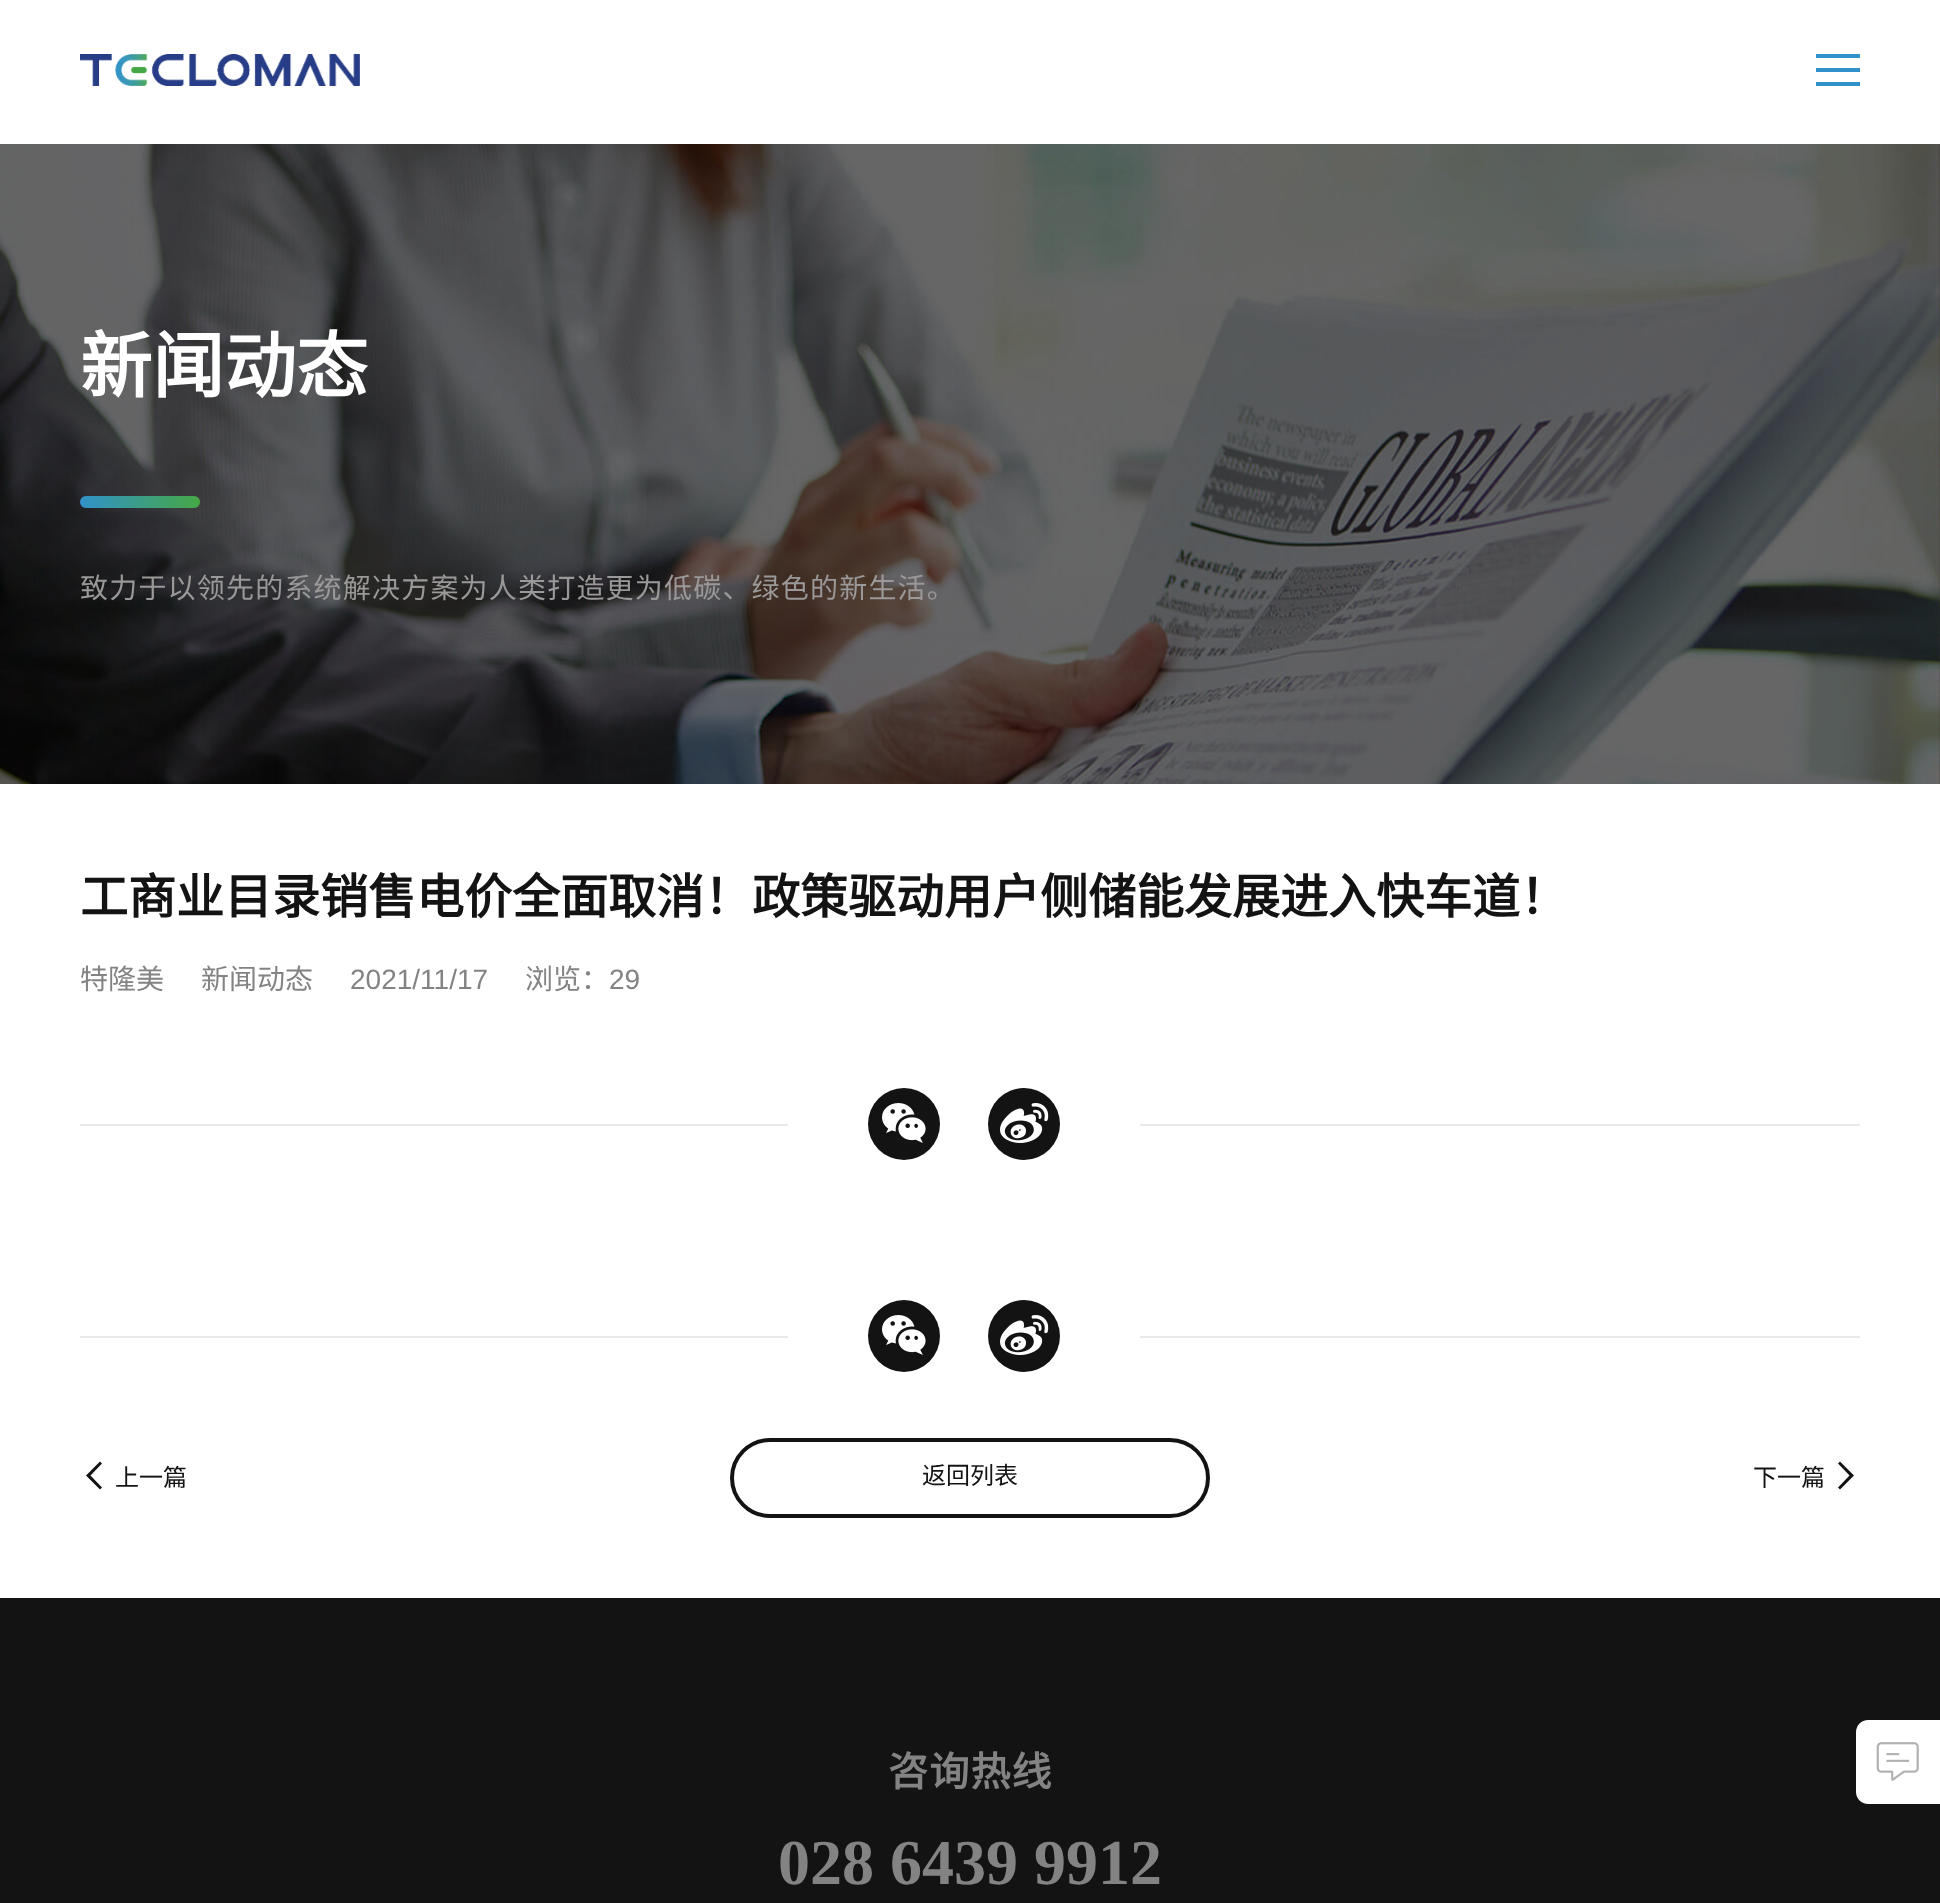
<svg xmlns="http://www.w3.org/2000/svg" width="1940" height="1903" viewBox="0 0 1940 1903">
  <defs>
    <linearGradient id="g1" gradientUnits="userSpaceOnUse" x1="200" y1="502" x2="80" y2="502"><stop offset="0" stop-color="#46a845"/><stop offset="1" stop-color="#3192c9"/></linearGradient>
  </defs>
  <rect width="100%" height="100%" fill="#fff"/>
  <image x="80" y="54" width="280" height="32" href="img/1.png"/>
  <path d="M1816 54h44v4H1816z" fill="#3192c9"/>
  <path d="M1816 68h44v4H1816z" fill="#3192c9"/>
  <path d="M1816 82h44v4H1816z" fill="#3192c9"/>
  <image x="0" y="144" width="1940" height="640" href="img/2.png"/>
  <rect x="80" y="496" width="120" height="12" rx="6" fill="url(#g1)"/>
  <path d="M80 1124h1780v2H80z" fill="#eaeaea"/>
  <path d="M788 1124h352v2H788z" fill="#fff"/>
  <circle cx="904" cy="1124" r="36" fill="#131313"/>
  <image x="882" y="1103" width="44" height="40" href="img/3.png"/>
  <circle cx="1024" cy="1124" r="36" fill="#131313"/>
  <image x="1000" y="1103" width="49" height="40" href="img/4.png"/>
  <path d="M80 1336h1780v2H80z" fill="#eaeaea"/>
  <path d="M788 1336h352v2H788z" fill="#fff"/>
  <circle cx="904" cy="1336" r="36" fill="#131313"/>
  <image x="882" y="1315" width="44" height="40" href="img/3.png"/>
  <circle cx="1024" cy="1336" r="36" fill="#131313"/>
  <image x="1000" y="1315" width="49" height="40" href="img/4.png"/>
  <path d="M100 1461.5L102 1463.5L90.5 1475.5L102 1487.5L100 1489.5L86 1475.5Z" fill="#131313"/>
  <rect x="732" y="1440" width="476" height="76" rx="38" fill="none" stroke="#131313" stroke-width="4"/>
  <path d="M1840 1489.5L1838 1487.5L1849.5 1475.5L1838 1463.5L1840 1461.5L1854 1475.5Z" fill="#131313"/>
  <path d="M0 1598h1940v305H0z" fill="#131313"/>
  <path d="M1868 1720H1940V1804H1868C1861.5 1804 1856 1798.5 1856 1792V1732C1856 1725.5 1861.5 1720 1868 1720Z" fill="#fff"/>
  <image x="1876" y="1742" width="43" height="39" href="img/5.png"/>
  <text x="80" y="392" font-family="Noto Sans CJK SC" font-size="72" font-weight="bold" fill="#fff">新闻动态</text>
  <text x="80" y="598" font-family="Noto Sans CJK SC" font-size="28" letter-spacing="1.2" fill="#9a9898">致力于以领先的系统解决方案为人类打造更为低碳、绿色的新生活。</text>
  <text x="80" y="914" font-family="Noto Sans CJK SC" font-size="48" font-weight="bold" fill="#131313">工商业目录销售电价全面取消！政策驱动用户侧储能发展进入快车道！</text>
  <g font-family="Noto Sans CJK SC" font-size="28" fill="#838383">
    <text x="80" y="989">特隆美</text>
    <text x="201" y="989">新闻动态</text>
  </g>
  <text x="350" y="989" font-family="Liberation Sans" font-size="28" fill="#838383">2021/11/17</text>
  <text x="525" y="989" font-family="Noto Sans CJK SC" font-size="28" fill="#838383">浏览：</text>
  <text x="609" y="989" font-family="Liberation Sans" font-size="28" fill="#838383">29</text>
  <g font-family="Noto Sans CJK SC" font-size="24" fill="#131313">
    <text x="115" y="1486">上一篇</text>
    <text x="922" y="1484">返回列表</text>
    <text x="1753" y="1486">下一篇</text>
  </g>
  <text x="888" y="1786" font-family="Noto Sans CJK SC" font-size="40" font-weight="bold" letter-spacing="1.2" fill="#838383">咨询热线</text>
  <text x="778" y="1884" font-family="Liberation Serif" font-size="64" font-weight="bold" fill="#838383">028 6439 9912</text>
</svg>
